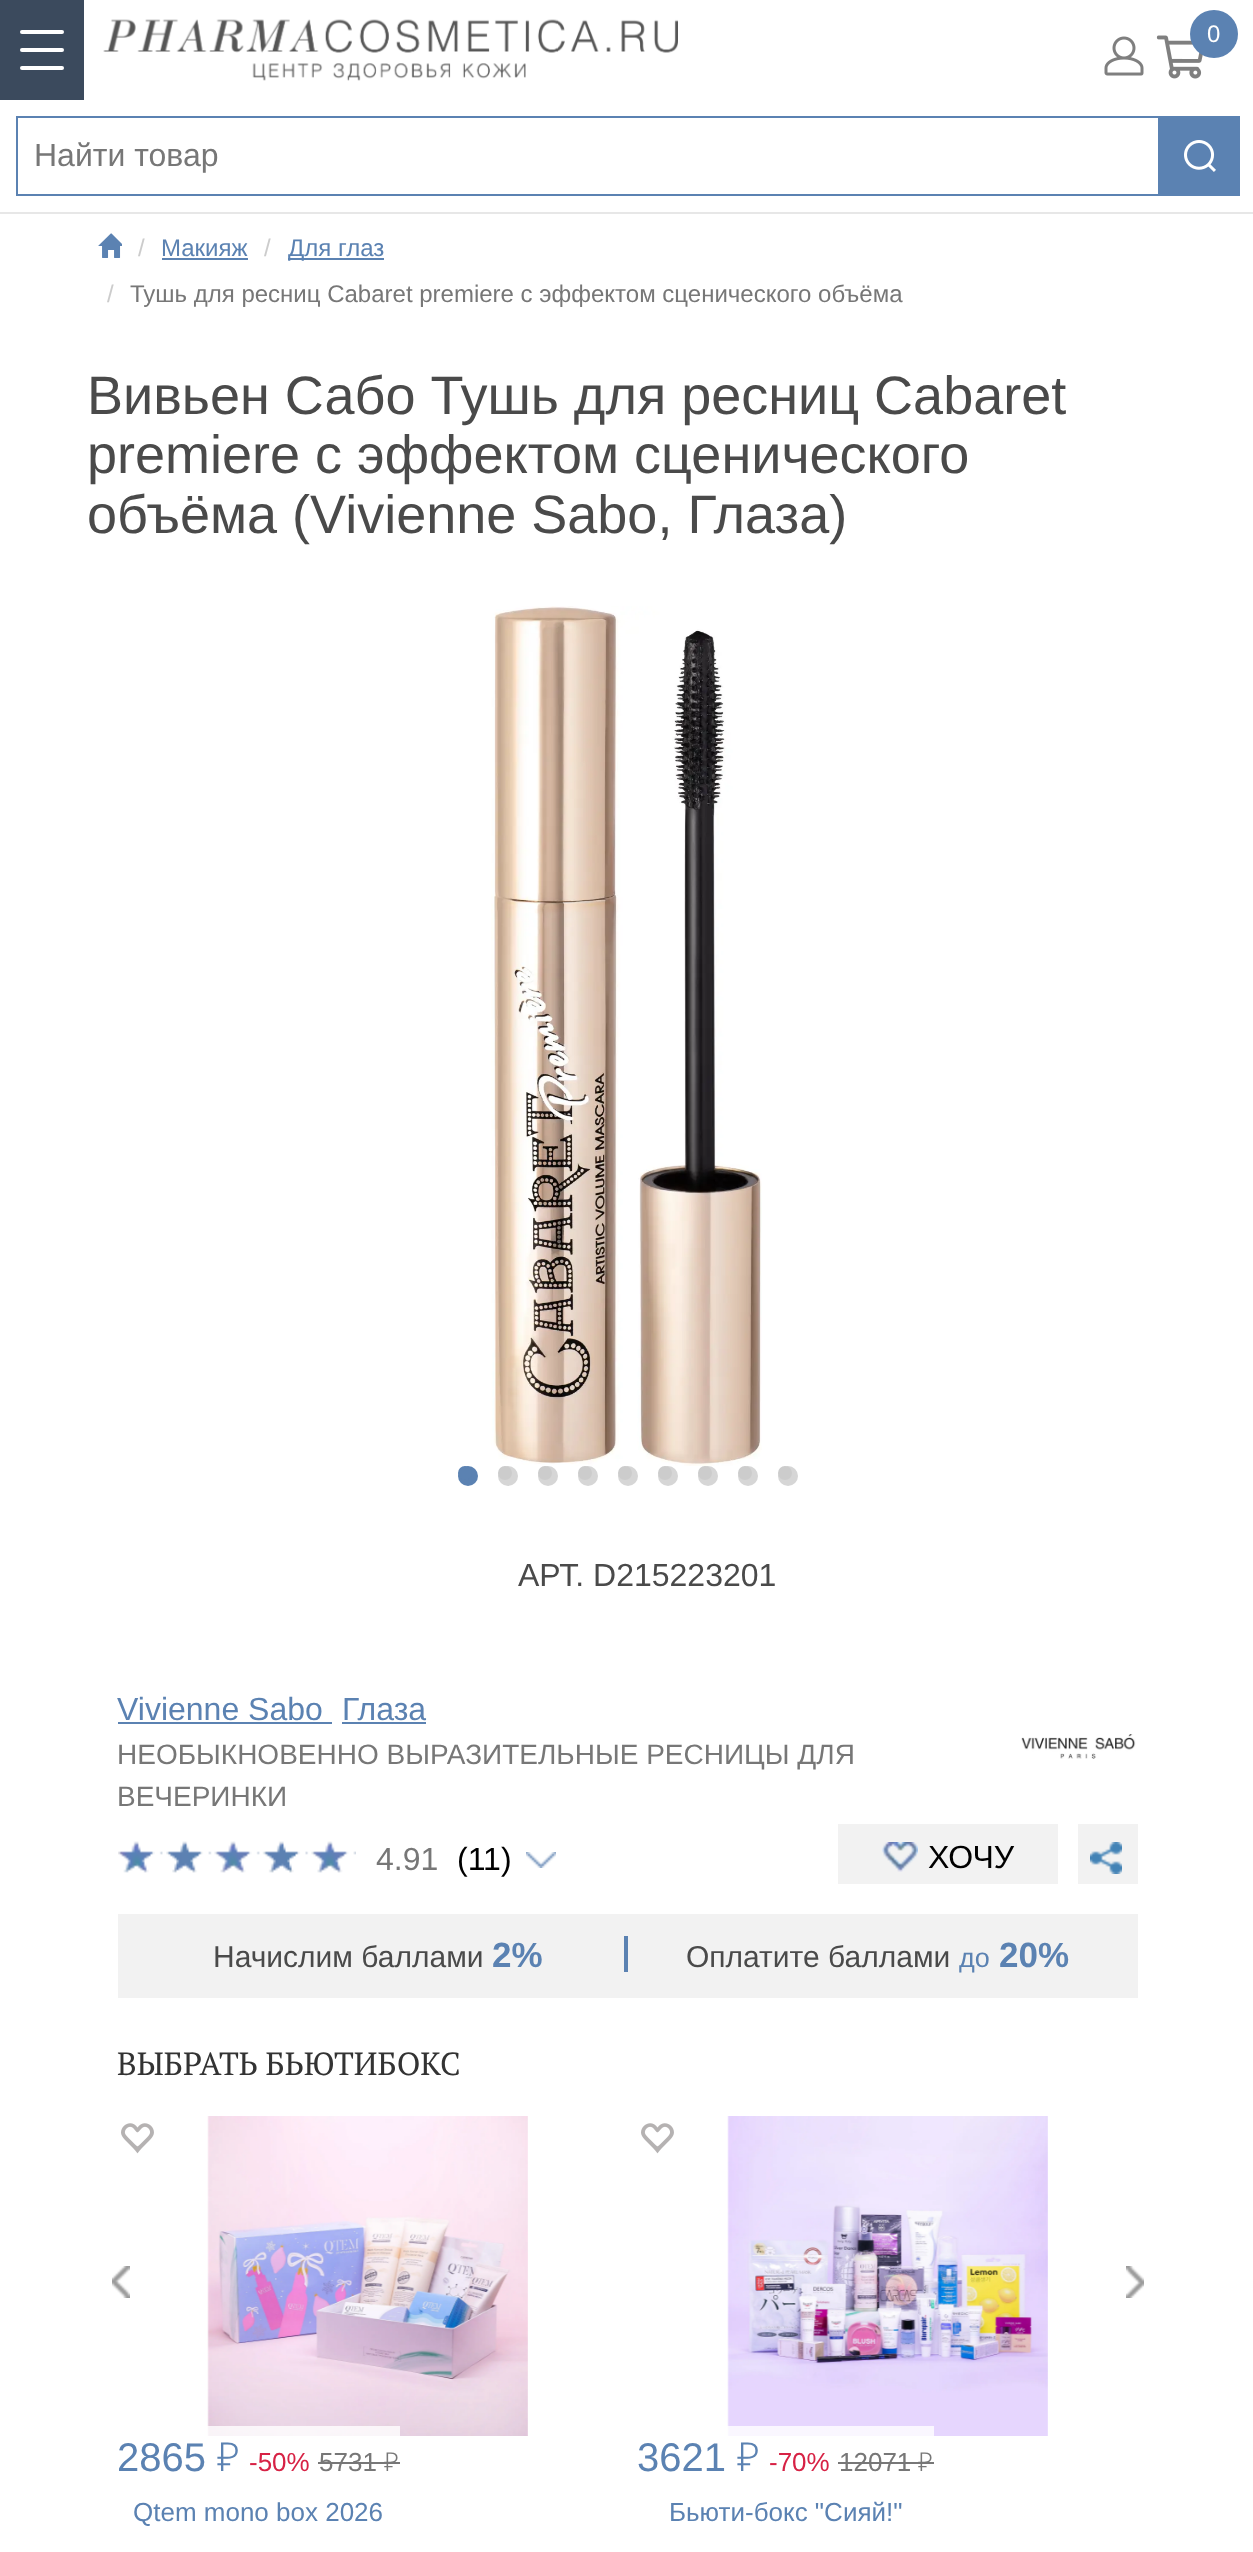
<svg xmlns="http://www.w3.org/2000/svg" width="1253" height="2552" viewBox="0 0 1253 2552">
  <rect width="100%" height="100%" fill="#fff"/>
  <path d="M0 0h84v100H0z" fill="#3b4a5d"/>
  <rect x="20" y="30" width="44" height="4" rx="2" fill="#fff"/>
  <rect x="20" y="48" width="44" height="4" rx="2" fill="#fff"/>
  <rect x="20" y="66" width="44" height="4" rx="2" fill="#fff"/>
  <image x="103" y="19" width="575" height="62" href="img/1.png"/>
  <image x="1156" y="35" width="47" height="44" href="img/2.png"/>
  <circle cx="1214" cy="34" r="24" fill="#5b82b2"/>
  <image x="1104" y="36" width="40" height="40" href="img/3.png"/>
  <path d="M0 212h1253v2H0z" fill="#e7e7e7"/>
  <path d="M17 117h1142v78H17z" fill="none" stroke="#5b82b2" stroke-width="2"/>
  <path d="M1160 116h80v80H1160z" fill="#5b82b2"/>
  <image x="1184" y="140" width="32" height="32" href="img/4.png"/>
  <image x="98" y="233" width="24" height="25" href="img/5.png"/>
  <path d="M162 258h86v2H162z" fill="#5b82b2"/>
  <path d="M288 258h96v2H288z" fill="#5b82b2"/>
  <image x="491" y="606" width="271" height="860" href="img/6.png"/>
  <circle cx="468" cy="1476" r="10" fill="#5b82b2"/>
  <circle cx="465" cy="1473" r="7" fill="#5b82b2"/>
  <circle cx="508" cy="1476" r="10" fill="#d6d6d6"/>
  <circle cx="505" cy="1473" r="7" fill="#ccc"/>
  <circle cx="548" cy="1476" r="10" fill="#d6d6d6"/>
  <circle cx="545" cy="1473" r="7" fill="#ccc"/>
  <circle cx="588" cy="1476" r="10" fill="#d6d6d6"/>
  <circle cx="585" cy="1473" r="7" fill="#ccc"/>
  <circle cx="628" cy="1476" r="10" fill="#d6d6d6"/>
  <circle cx="625" cy="1473" r="7" fill="#ccc"/>
  <circle cx="668" cy="1476" r="10" fill="#d6d6d6"/>
  <circle cx="665" cy="1473" r="7" fill="#ccc"/>
  <circle cx="708" cy="1476" r="10" fill="#d6d6d6"/>
  <circle cx="705" cy="1473" r="7" fill="#ccc"/>
  <circle cx="748" cy="1476" r="10" fill="#d6d6d6"/>
  <circle cx="745" cy="1473" r="7" fill="#ccc"/>
  <circle cx="788" cy="1476" r="10" fill="#d6d6d6"/>
  <circle cx="785" cy="1473" r="7" fill="#ccc"/>
  <path d="M118 1722h214v2H118z" fill="#5b82b2"/>
  <path d="M342 1722h84v2H342z" fill="#5b82b2"/>
  <image x="1021" y="1734" width="115" height="25" href="img/7.png"/>
  <image x="118" y="1841" width="238" height="32" href="img/8.png"/>
  <image x="526" y="1852" width="30" height="16" href="img/9.png"/>
  <path d="M838 1824h220v60H838z" fill="#f2f2f2"/>
  <image x="882" y="1842" width="36" height="30" href="img/10.png"/>
  <path d="M1078 1824h60v60H1078z" fill="#f2f2f2"/>
  <image x="1090" y="1842" width="32" height="32" href="img/11.png"/>
  <path d="M118 1914h1020v84H118z" fill="#f2f2f2"/>
  <path d="M624 1936h4v36H624z" fill="#5b82b2"/>
  <image x="112" y="2266" width="18" height="32" href="img/12.png"/>
  <image x="1126" y="2266" width="18" height="32" href="img/13.png"/>
  <image x="121" y="2123" width="33" height="31" href="img/14.png"/>
  <image x="207" y="2116" width="321" height="320" href="img/15.png"/>
  <path d="M207 2426h193v10H207z" fill="#ffffffcc"/>
  <path d="M318 2462h82v2H318z" fill="#777"/>
  <image x="641" y="2123" width="33" height="31" href="img/14.png"/>
  <image x="727" y="2116" width="321" height="320" href="img/16.png"/>
  <path d="M727 2426h207v10H727z" fill="#ffffffcc"/>
  <path d="M838 2462h96v2H838z" fill="#777"/>
  <text x="1207" y="42" font-family="Liberation Sans" font-size="24" fill="#fff">0</text>
  <text x="34" y="166" font-family="Liberation Sans" font-size="32" fill="#777">Найти товар</text>
  <text x="138" y="256" font-family="Liberation Sans" font-size="24" fill="#ccc">/</text>
  <text x="161" y="256" font-family="Liberation Sans" font-size="24" fill="#5b82b2">Макияж</text>
  <text x="264" y="256" font-family="Liberation Sans" font-size="24" fill="#ccc">/</text>
  <text x="288" y="256" font-family="Liberation Sans" font-size="24" fill="#5b82b2">Для глаз</text>
  <text x="107" y="302" font-family="Liberation Sans" font-size="24" fill="#ccc">/</text>
  <text x="130" y="302" font-family="Liberation Sans" font-size="24" fill="#777">Тушь для ресниц Cabaret premiere с эффектом сценического объёма</text>
  <g font-family="Liberation Sans" font-size="54" fill="#4a4a4a">
    <text x="87" y="414">Вивьен Сабо Тушь для ресниц Cabaret</text>
    <text x="87" y="473">premiere с эффектом сценического</text>
    <text x="87" y="533">объёма (Vivienne Sabo, Глаза)</text>
  </g>
  <text x="518" y="1586" font-family="Liberation Sans" font-size="32" fill="#4a4a4a">АРТ. D215223201</text>
  <g font-family="Liberation Sans" font-size="32" fill="#5b82b2">
    <text x="117" y="1720">Vivienne Sabo</text>
    <text x="342" y="1720">Глаза</text>
  </g>
  <g font-family="Liberation Sans" font-size="28" fill="#777">
    <text x="117" y="1764">НЕОБЫКНОВЕННО ВЫРАЗИТЕЛЬНЫЕ РЕСНИЦЫ ДЛЯ</text>
    <text x="117" y="1806">ВЕЧЕРИНКИ</text>
  </g>
  <text x="376" y="1870" font-family="Liberation Sans" font-size="32" fill="#777">4.91</text>
  <g font-family="Liberation Sans" font-size="32" fill="#000">
    <text x="457" y="1870">(11)</text>
    <text x="928" y="1868">ХОЧУ</text>
  </g>
  <text x="213" y="1967" font-family="Liberation Sans" font-size="30" fill="#4a4a4a">Начислим баллами</text>
  <text x="492" y="1967" font-family="Liberation Sans" font-size="35" font-weight="bold" fill="#5b82b2">2%</text>
  <text x="686" y="1967" font-family="Liberation Sans" font-size="30" fill="#4a4a4a">Оплатите баллами</text>
  <text x="959" y="1967" font-family="Liberation Sans" font-size="27" fill="#5b82b2">до</text>
  <text x="999" y="1967" font-family="Liberation Sans" font-size="35" font-weight="bold" fill="#5b82b2">20%</text>
  <text x="117" y="2075" font-family="PT Serif" font-size="32" fill="#333">ВЫБРАТЬ БЬЮТИБОКС</text>
  <text x="117" y="2471" font-family="Liberation Sans" font-size="40" fill="#5b82b2">2865</text>
  <text x="217" y="2471" font-family="Noto Sans" font-size="40" font-weight="300" fill="#5b82b2">₽</text>
  <text x="249" y="2471" font-family="Liberation Sans" font-size="26" fill="#d72245">-50%</text>
  <text x="319" y="2471" font-family="Liberation Sans" font-size="26" fill="#777">5731</text>
  <text x="384" y="2471" font-family="Noto Sans" font-size="26" font-weight="300" fill="#777">₽</text>
  <text x="133" y="2521" font-family="Liberation Sans" font-size="26" fill="#5b82b2">Qtem mono box 2026</text>
  <text x="637" y="2471" font-family="Liberation Sans" font-size="40" fill="#5b82b2">3621</text>
  <text x="737" y="2471" font-family="Noto Sans" font-size="40" font-weight="300" fill="#5b82b2">₽</text>
  <text x="769" y="2471" font-family="Liberation Sans" font-size="26" fill="#d72245">-70%</text>
  <text x="839" y="2471" font-family="Liberation Sans" font-size="26" fill="#777">12071</text>
  <text x="918" y="2471" font-family="Noto Sans" font-size="26" font-weight="300" fill="#777">₽</text>
  <text x="669" y="2521" font-family="Liberation Sans" font-size="26" fill="#5b82b2">Бьюти-бокс "Сияй!"</text>
</svg>
